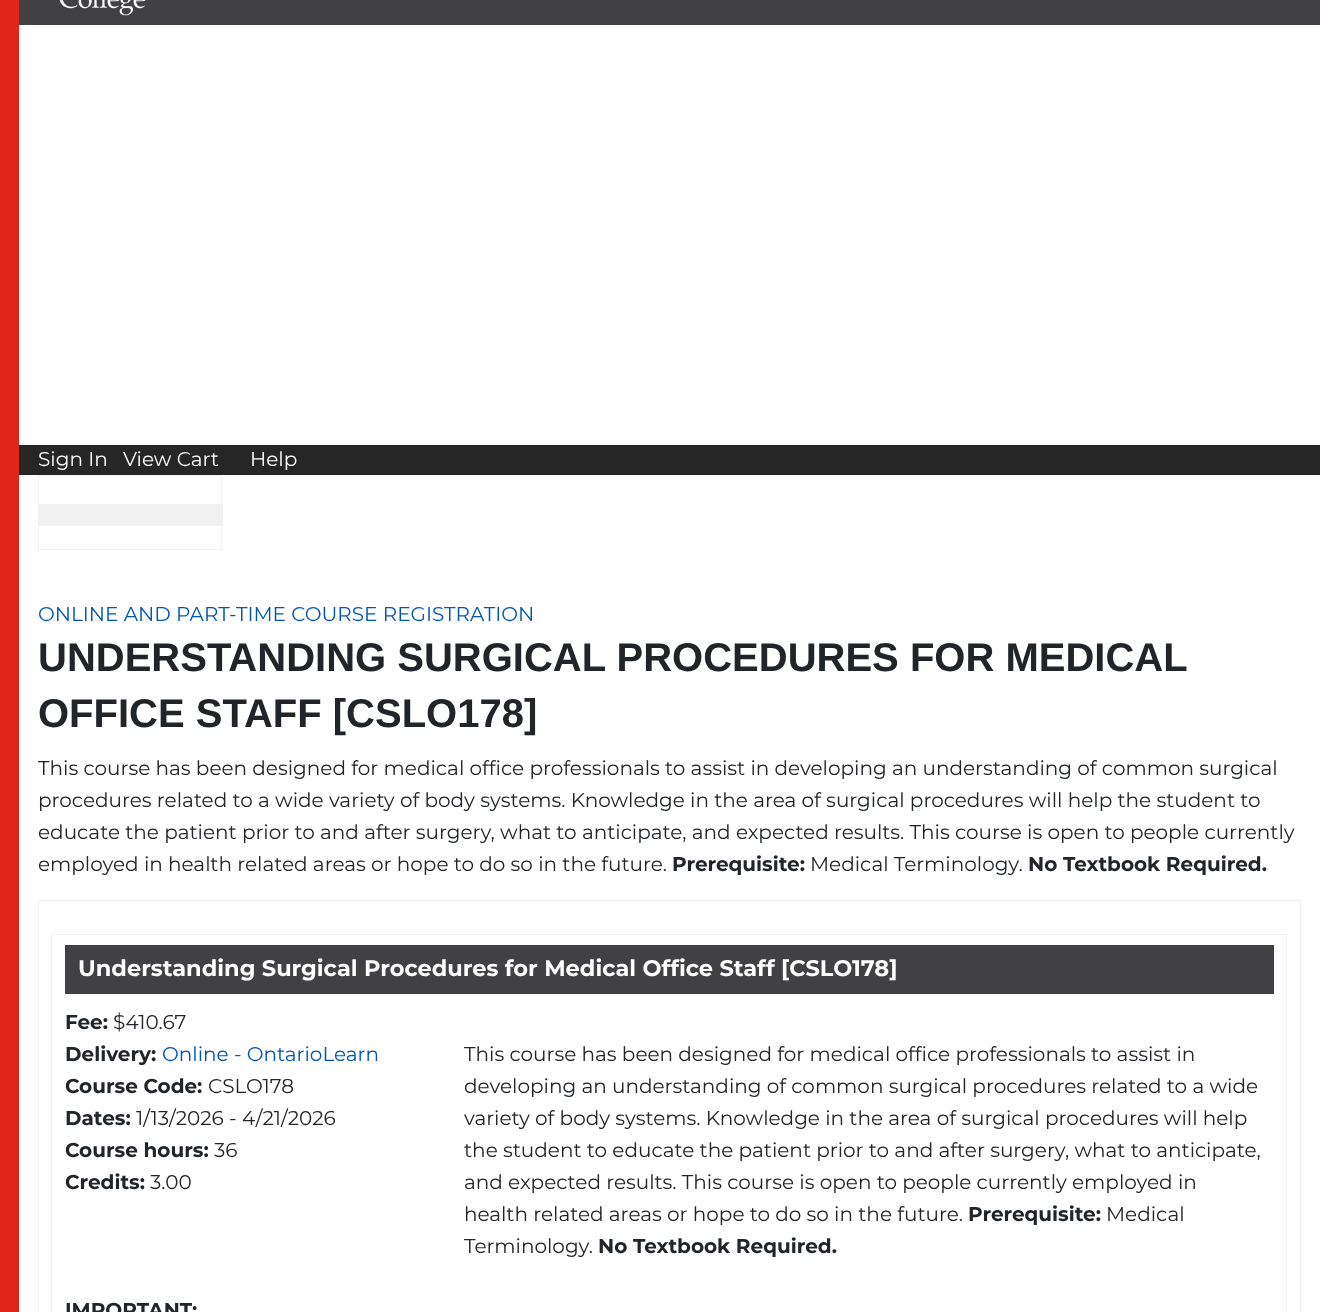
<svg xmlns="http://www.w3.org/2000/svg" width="1320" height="1312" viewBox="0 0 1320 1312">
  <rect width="100%" height="100%" fill="#fff"/>
  <path d="M19 0h1301v25H19z" fill="#414042"/>
  <path d="M0 0h19v1312H0z" fill="#e1251b"/>
  <image x="59" y="0" width="87" height="16" href="img/1.png"/>
  <path d="M19 445h1301v30H19z" fill="#262626"/>
  <path d="M38 475h185v1H38z" fill="#f1f1f1"/>
  <path d="M39 504h184v22H39z" fill="#f1f1f1"/>
  <path d="M221 475h1v75H221z" fill="#f1f1f1"/>
  <path d="M38 549h185v1H38z" fill="#f1f1f1"/>
  <path d="M38 475h1v75H38z" fill="#f1f1f1"/>
  <path d="M38 900h1263v1H38z" fill="#f1f1f1"/>
  <path d="M1300 900h1v412H1300z" fill="#f1f1f1"/>
  <path d="M38 900h1v412H38z" fill="#f1f1f1"/>
  <path d="M51 934h1237v1H51z" fill="#f1f1f1"/>
  <path d="M1286 934h1v378H1286z" fill="#f1f1f1"/>
  <path d="M51 934h1v378H51z" fill="#f1f1f1"/>
  <path d="M65 945h1209v49H65z" fill="#414042"/>
  <g font-family="Montserrat" font-size="20" fill="#fff">
    <text x="38" y="466">Sign In</text>
    <text x="123" y="466">View Cart</text>
    <text x="250" y="466">Help</text>
  </g>
  <text x="38" y="621" font-family="Montserrat" font-size="20" fill="#0056b3">ONLINE AND PART-TIME COURSE REGISTRATION</text>
  <g font-family="Liberation Sans" font-size="40" font-weight="bold" fill="#212529">
    <text x="38" y="671">UNDERSTANDING SURGICAL PROCEDURES FOR MEDICAL</text>
    <text x="38" y="727">OFFICE STAFF [CSLO178]</text>
  </g>
  <g font-family="Montserrat" font-size="20" fill="#212529">
    <text x="38" y="775">This course has been designed for medical office professionals to assist in developing an understanding of common surgical</text>
    <text x="38" y="807">procedures related to a wide variety of body systems. Knowledge in the area of surgical procedures will help the student to</text>
    <text x="38" y="839">educate the patient prior to and after surgery, what to anticipate, and expected results. This course is open to people currently</text>
    <text x="38" y="871">employed in health related areas or hope to do so in the future.</text>
  </g>
  <text x="672" y="871" font-family="Montserrat" font-size="20" font-weight="bold" fill="#212529">Prerequisite:</text>
  <text x="810" y="871" font-family="Montserrat" font-size="20" fill="#212529">Medical Terminology.</text>
  <text x="1028" y="871" font-family="Montserrat" font-size="20" font-weight="bold" fill="#212529">No Textbook Required.</text>
  <text x="78" y="976" font-family="Montserrat" font-size="22.5" font-weight="bold" fill="#fff">Understanding Surgical Procedures for Medical Office Staff [CSLO178]</text>
  <text x="65" y="1029" font-family="Montserrat" font-size="20" font-weight="bold" fill="#212529">Fee:</text>
  <text x="113" y="1029" font-family="Montserrat" font-size="20" fill="#212529">$410.67</text>
  <text x="65" y="1061" font-family="Montserrat" font-size="20" font-weight="bold" fill="#212529">Delivery:</text>
  <text x="162" y="1061" font-family="Montserrat" font-size="20" fill="#0056b3">Online - OntarioLearn</text>
  <text x="65" y="1093" font-family="Montserrat" font-size="20" font-weight="bold" fill="#212529">Course Code:</text>
  <text x="208" y="1093" font-family="Montserrat" font-size="20" fill="#212529">CSLO178</text>
  <text x="65" y="1125" font-family="Montserrat" font-size="20" font-weight="bold" fill="#212529">Dates:</text>
  <text x="136" y="1125" font-family="Montserrat" font-size="20" fill="#212529">1/13/2026 - 4/21/2026</text>
  <text x="65" y="1157" font-family="Montserrat" font-size="20" font-weight="bold" fill="#212529">Course hours:</text>
  <text x="214" y="1157" font-family="Montserrat" font-size="20" fill="#212529">36</text>
  <text x="65" y="1189" font-family="Montserrat" font-size="20" font-weight="bold" fill="#212529">Credits:</text>
  <g font-family="Montserrat" font-size="20" fill="#212529">
    <text x="150" y="1189">3.00</text>
    <text x="464" y="1061">This course has been designed for medical office professionals to assist in</text>
    <text x="464" y="1093">developing an understanding of common surgical procedures related to a wide</text>
    <text x="464" y="1125">variety of body systems. Knowledge in the area of surgical procedures will help</text>
    <text x="464" y="1157">the student to educate the patient prior to and after surgery, what to anticipate,</text>
    <text x="464" y="1189">and expected results. This course is open to people currently employed in</text>
    <text x="464" y="1221">health related areas or hope to do so in the future.</text>
  </g>
  <text x="968" y="1221" font-family="Montserrat" font-size="20" font-weight="bold" fill="#212529">Prerequisite:</text>
  <g font-family="Montserrat" font-size="20" fill="#212529">
    <text x="1106" y="1221">Medical</text>
    <text x="464" y="1253">Terminology.</text>
  </g>
  <g font-family="Montserrat" font-size="20" font-weight="bold" fill="#212529">
    <text x="598" y="1253">No Textbook Required.</text>
    <text x="65" y="1317">IMPORTANT:</text>
  </g>
</svg>
